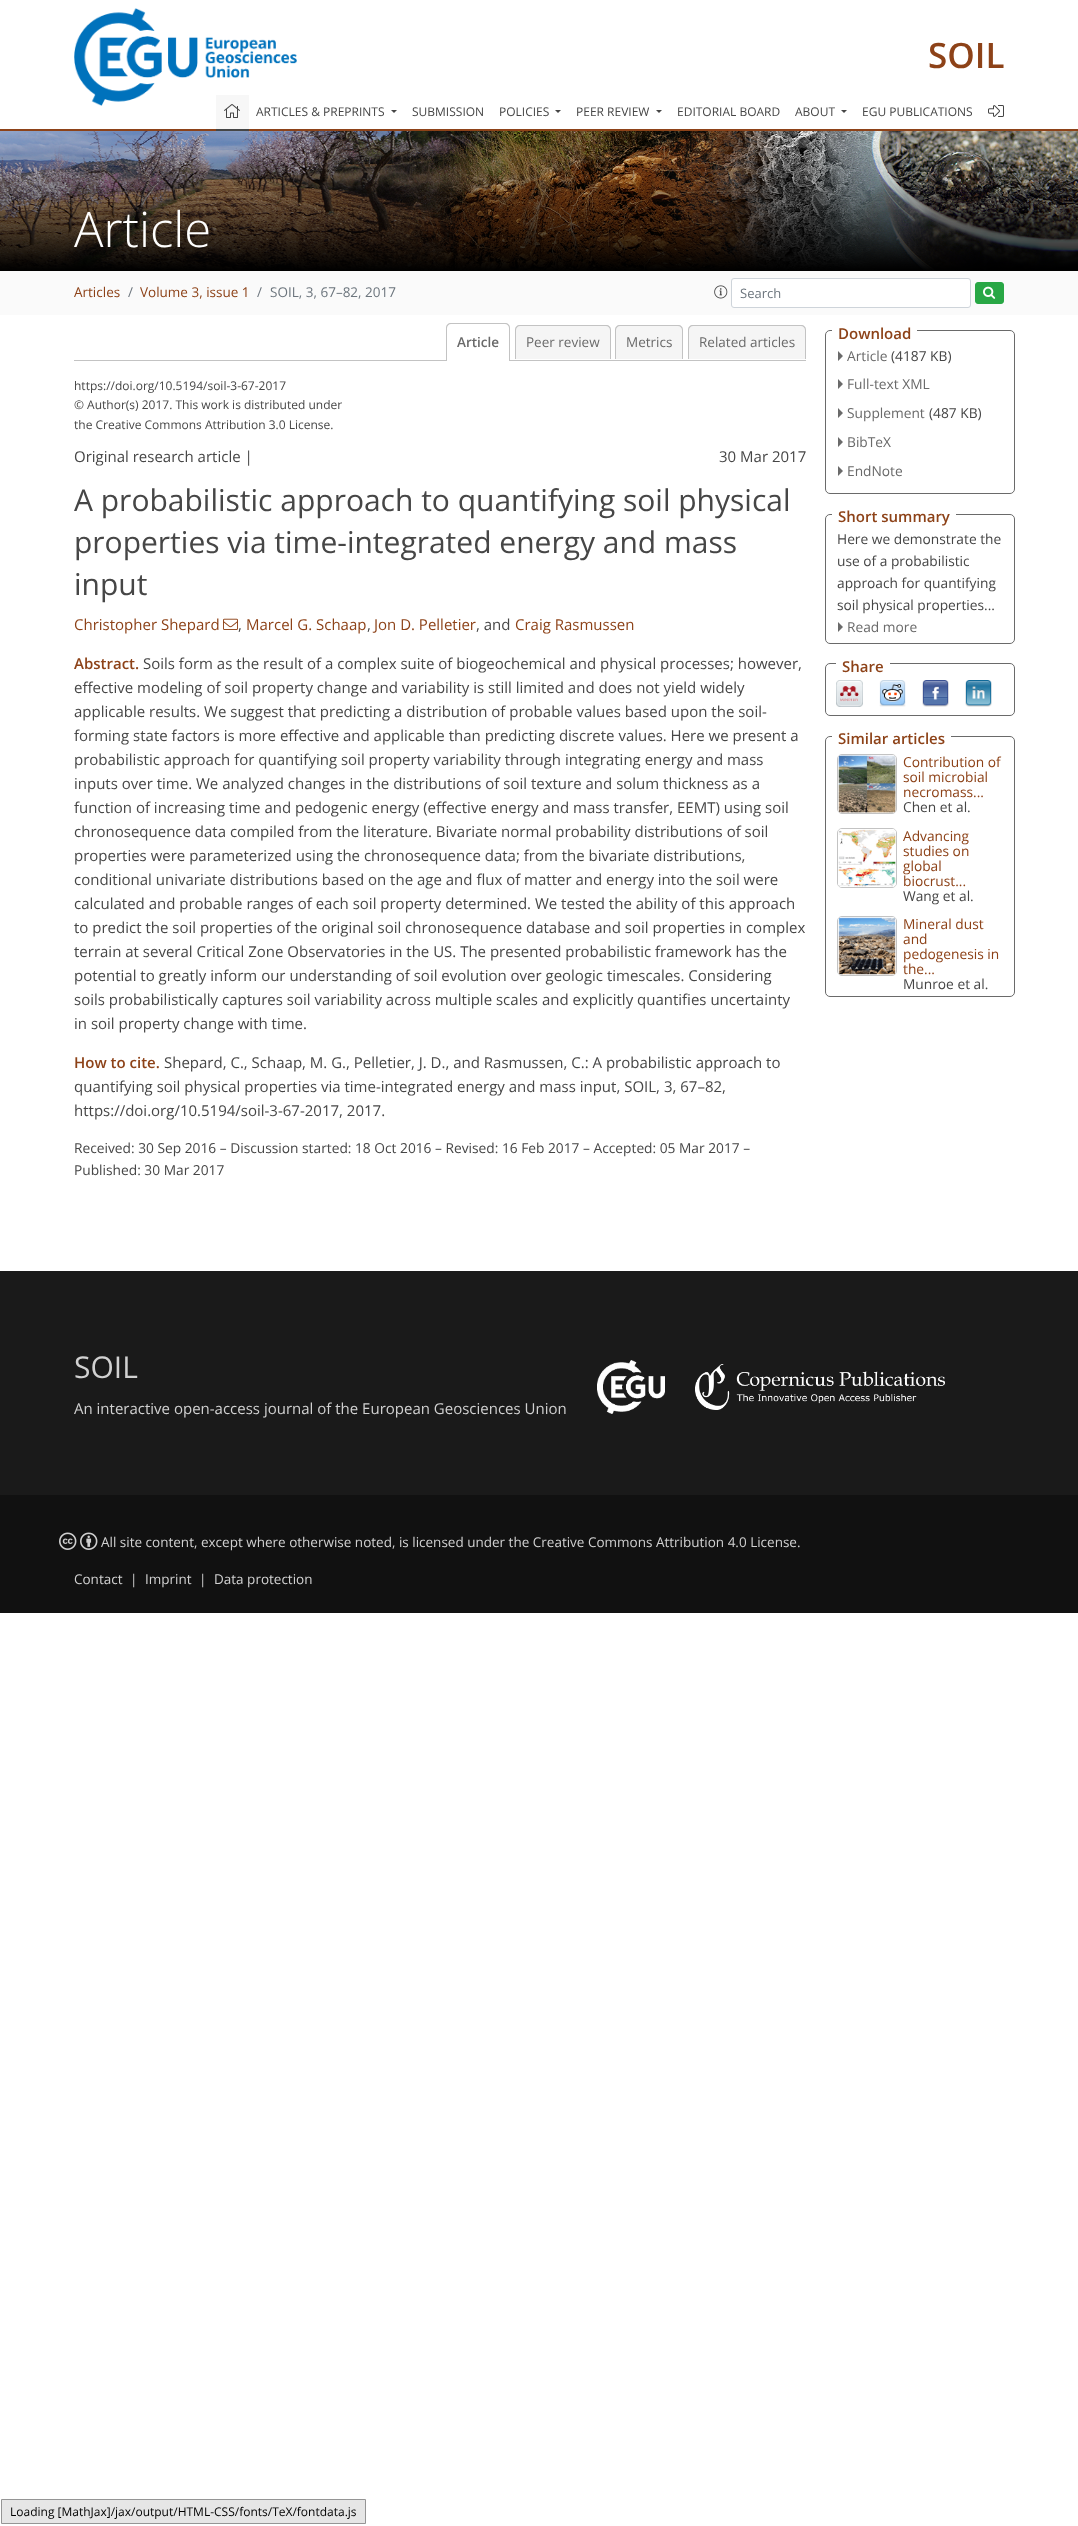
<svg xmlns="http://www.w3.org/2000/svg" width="1078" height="2526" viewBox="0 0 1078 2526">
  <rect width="100%" height="100%" fill="#fff"/>
  <image x="74" y="8" width="223" height="98" href="img/1.png"/>
  <path d="M0 129h1078v2H0z" fill="#8d4218"/>
  <path d="M216 95h33v34H216z" fill="#f7f7f7"/>
  <path d="M216 129h33v2H216z" fill="#464646"/>
  <image x="224" y="104" width="16" height="14" href="img/2.png"/>
  <path d="M391 110H397L394 113Z" fill="#464646"/>
  <path d="M555 110H561L558 113Z" fill="#464646"/>
  <path d="M656 110H662L659 113Z" fill="#464646"/>
  <path d="M841 110H847L844 113Z" fill="#464646"/>
  <image x="988" y="105" width="16" height="12" href="img/3.png"/>
  <image x="0" y="131" width="1078" height="140" href="img/4.png"/>
  <path d="M0 271h1078v44H0z" fill="#fafafa"/>
  <image x="714" y="285" width="14" height="14" href="img/5.png"/>
  <rect x="731.5" y="278.5" width="239" height="29" rx="2.5" fill="#fff" stroke="#ced4da"/>
  <rect x="975.5" y="282.5" width="28" height="21" rx="2.5" fill="#28a745" stroke="#28a745"/>
  <image x="983" y="286" width="13" height="13" href="img/6.png"/>
  <path d="M74 360h732v1H74z" fill="#c3c3c3"/>
  <path d="M451 323H505C508 323 510 325 510 328V361H446V328C446 325 448 323 451 323Z" fill="#fff"/>
  <path d="M451 323H505C508 323 510 325 510 328V361H446V328C446 325 448 323 451 323ZM451 324H505C507 324 509 326 509 328V361H447V328C447 326 449 324 451 324Z" fill="#c3c3c3" fill-rule="evenodd"/>
  <path d="M520 325H606C609 325 611 327 611 330V359H515V330C515 327 517 325 520 325Z" fill="#f5f5f5"/>
  <path d="M520 325H606C609 325 611 327 611 330V359H515V330C515 327 517 325 520 325ZM520 326H606C608 326 610 328 610 330V359H516V330C516 328 518 326 520 326Z" fill="#c3c3c3" fill-rule="evenodd"/>
  <path d="M620 325H678C681 325 683 327 683 330V359H615V330C615 327 617 325 620 325Z" fill="#f5f5f5"/>
  <path d="M620 325H678C681 325 683 327 683 330V359H615V330C615 327 617 325 620 325ZM620 326H678C680 326 682 328 682 330V359H616V330C616 328 618 326 620 326Z" fill="#c3c3c3" fill-rule="evenodd"/>
  <path d="M693 325H801C804 325 806 327 806 330V359H688V330C688 327 690 325 693 325Z" fill="#f5f5f5"/>
  <path d="M693 325H801C804 325 806 327 806 330V359H688V330C688 327 690 325 693 325ZM693 326H801C803 326 805 328 805 330V359H689V330C689 328 691 326 693 326Z" fill="#c3c3c3" fill-rule="evenodd"/>
  <image x="223" y="618" width="15" height="12" href="img/7.png"/>
  <rect x="825.5" y="330.5" width="189" height="163" rx="4.5" fill="none" stroke="#6a6a6a"/>
  <path d="M832 330h85v1H832z" fill="#fff"/>
  <path d="M838 361V351L843 356ZM838 389V379L843 384Z" fill="#6a6a6a"/>
  <path d="M838 418V408L843 413ZM838 447V437L843 442Z" fill="#6a6a6a"/>
  <path d="M838 476V466L843 471Z" fill="#6a6a6a"/>
  <rect x="825.5" y="514.5" width="189" height="129" rx="4.5" fill="none" stroke="#6a6a6a"/>
  <path d="M832 514h124v1H832z" fill="#fff"/>
  <path d="M838 632V622L843 627Z" fill="#6a6a6a"/>
  <rect x="825.5" y="663.5" width="189" height="52" rx="4.5" fill="none" stroke="#6a6a6a"/>
  <path d="M836 663h54v1H836z" fill="#fff"/>
  <image x="836" y="680" width="27" height="27" href="img/8.png"/>
  <image x="879" y="680" width="27" height="27" href="img/9.png"/>
  <image x="922" y="680" width="27" height="27" href="img/10.png"/>
  <image x="965" y="680" width="27" height="27" href="img/11.png"/>
  <rect x="825.5" y="736.5" width="189" height="260" rx="4.5" fill="none" stroke="#6a6a6a"/>
  <path d="M832 736h119v1H832z" fill="#fff"/>
  <rect x="837.5" y="754.5" width="59" height="59" rx="4.5" fill="none" stroke="#c3c3c3"/>
  <image x="838" y="755" width="58" height="58" href="img/12.png"/>
  <rect x="837.5" y="828.5" width="59" height="59" rx="4.5" fill="none" stroke="#c3c3c3"/>
  <image x="838" y="829" width="58" height="58" href="img/13.png"/>
  <rect x="837.5" y="916.5" width="59" height="59" rx="4.5" fill="none" stroke="#c3c3c3"/>
  <image x="838" y="917" width="58" height="58" href="img/14.png"/>
  <path d="M0 1271h1078v224H0z" fill="#1a1a1a"/>
  <image x="597" y="1360" width="68" height="54" href="img/15.png"/>
  <image x="695" y="1364" width="250" height="46" href="img/16.png"/>
  <path d="M0 1495h1078v118H0z" fill="#111"/>
  <image x="59" y="1532" width="18" height="18" href="img/17.png"/>
  <image x="80" y="1532" width="18" height="18" href="img/18.png"/>
  <path d="M1.5 2499.5h364v24H1.5z" fill="#e6e6e6" stroke="#959595"/>
  <text x="928" y="68" font-family="Open Sans" font-size="35" font-weight="600" fill="#8d4218">SOIL</text>
  <g font-family="Open Sans" font-size="12" fill="#464646">
    <text x="256" y="116">ARTICLES &amp; PREPRINTS</text>
    <text x="412" y="116">SUBMISSION</text>
    <text x="499" y="116">POLICIES</text>
    <text x="576" y="116">PEER REVIEW</text>
    <text x="677" y="116">EDITORIAL BOARD</text>
    <text x="795" y="116">ABOUT</text>
    <text x="862" y="116">EGU PUBLICATIONS</text>
  </g>
  <text x="74" y="247" font-family="Open Sans" font-size="49" font-weight="300" fill="#fff">Article</text>
  <text x="74" y="297" font-family="Open Sans" font-size="13.5" fill="#8d4218">Articles</text>
  <text x="128" y="297" font-family="Open Sans" font-size="13.5" fill="#6c757d">/</text>
  <text x="140" y="297" font-family="Open Sans" font-size="13.5" fill="#8d4218">Volume 3, issue 1</text>
  <g font-family="Open Sans" font-size="13.5" fill="#6c757d">
    <text x="257" y="297">/</text>
    <text x="270" y="297">SOIL, 3, 67–82, 2017</text>
  </g>
  <text x="740" y="298" font-family="Open Sans" font-size="13" fill="#6c757d">Search</text>
  <text x="457" y="347" font-family="Open Sans" font-size="13.5" font-weight="600" fill="#6a6a6a">Article</text>
  <g font-family="Open Sans" font-size="13.5" fill="#6a6a6a">
    <text x="526" y="347">Peer review</text>
    <text x="626" y="347">Metrics</text>
    <text x="699" y="347">Related articles</text>
  </g>
  <g font-family="Open Sans" font-size="12" fill="#464646">
    <text x="74" y="390">https://doi.org/10.5194/soil-3-67-2017</text>
    <text x="74" y="409">© Author(s) 2017. This work is distributed under</text>
    <text x="74" y="429">the Creative Commons Attribution 3.0 License.</text>
  </g>
  <g font-family="Open Sans" font-size="15" fill="#464646">
    <text x="74" y="462">Original research article |</text>
    <text x="719" y="462">30 Mar 2017</text>
  </g>
  <g font-family="Open Sans" font-size="30" fill="#464646">
    <text x="74" y="511">A probabilistic approach to quantifying soil physical</text>
    <text x="74" y="553">properties via time-integrated energy and mass</text>
    <text x="74" y="595">input</text>
  </g>
  <text x="74" y="630" font-family="Open Sans" font-size="15" fill="#8d4218">Christopher Shepard</text>
  <text x="238" y="630" font-family="Open Sans" font-size="15" fill="#464646">,</text>
  <text x="246" y="630" font-family="Open Sans" font-size="15" fill="#8d4218">Marcel G. Schaap</text>
  <text x="367" y="630" font-family="Open Sans" font-size="15" fill="#464646">,</text>
  <text x="374" y="630" font-family="Open Sans" font-size="15" fill="#8d4218">Jon D. Pelletier</text>
  <text x="476" y="630" font-family="Open Sans" font-size="15" fill="#464646">, and</text>
  <text x="515" y="630" font-family="Open Sans" font-size="15" fill="#8d4218">Craig Rasmussen</text>
  <text x="74" y="669" font-family="Open Sans" font-size="15" font-weight="600" fill="#8d4218">Abstract.</text>
  <g font-family="Open Sans" font-size="15" fill="#464646">
    <text x="143" y="669">Soils form as the result of a complex suite of biogeochemical and physical processes; however,</text>
    <text x="74" y="693">effective modeling of soil property change and variability is still limited and does not yield widely</text>
    <text x="74" y="717">applicable results. We suggest that predicting a distribution of probable values based upon the soil-</text>
    <text x="74" y="741">forming state factors is more effective and applicable than predicting discrete values. Here we present a</text>
    <text x="74" y="765">probabilistic approach for quantifying soil property variability through integrating energy and mass</text>
    <text x="74" y="789">inputs over time. We analyzed changes in the distributions of soil texture and solum thickness as a</text>
    <text x="74" y="813">function of increasing time and pedogenic energy (effective energy and mass transfer, EEMT) using soil</text>
    <text x="74" y="837">chronosequence data compiled from the literature. Bivariate normal probability distributions of soil</text>
    <text x="74" y="861">properties were parameterized using the chronosequence data; from the bivariate distributions,</text>
    <text x="74" y="885">conditional univariate distributions based on the age and flux of matter and energy into the soil were</text>
    <text x="74" y="909">calculated and probable ranges of each soil property determined. We tested the ability of this approach</text>
    <text x="74" y="933">to predict the soil properties of the original soil chronosequence database and soil properties in complex</text>
    <text x="74" y="957">terrain at several Critical Zone Observatories in the US. The presented probabilistic framework has the</text>
    <text x="74" y="981">potential to greatly inform our understanding of soil evolution over geologic timescales. Considering</text>
    <text x="74" y="1005">soils probabilistically captures soil variability across multiple scales and explicitly quantifies uncertainty</text>
    <text x="74" y="1029">in soil property change with time.</text>
  </g>
  <text x="74" y="1068" font-family="Open Sans" font-size="15" font-weight="600" fill="#8d4218">How to cite.</text>
  <g font-family="Open Sans" font-size="15" fill="#464646">
    <text x="164" y="1068">Shepard, C., Schaap, M. G., Pelletier, J. D., and Rasmussen, C.: A probabilistic approach to</text>
    <text x="74" y="1092">quantifying soil physical properties via time-integrated energy and mass input, SOIL, 3, 67–82,</text>
    <text x="74" y="1116">https://doi.org/10.5194/soil-3-67-2017, 2017.</text>
  </g>
  <g font-family="Open Sans" font-size="13.75" fill="#464646">
    <text x="74" y="1153">Received: 30 Sep 2016 – Discussion started: 18 Oct 2016 – Revised: 16 Feb 2017 – Accepted: 05 Mar 2017 –</text>
    <text x="74" y="1175">Published: 30 Mar 2017</text>
  </g>
  <text x="838" y="339" font-family="Open Sans" font-size="15" font-weight="600" fill="#8d4218">Download</text>
  <text x="847" y="361" font-family="Open Sans" font-size="13.75" fill="#6a6a6a">Article</text>
  <text x="891" y="361" font-family="Open Sans" font-size="13.75" fill="#464646">(4187 KB)</text>
  <g font-family="Open Sans" font-size="13.75" fill="#6a6a6a">
    <text x="847" y="389">Full-text XML</text>
    <text x="847" y="418">Supplement</text>
  </g>
  <text x="929" y="418" font-family="Open Sans" font-size="13.75" fill="#464646">(487 KB)</text>
  <g font-family="Open Sans" font-size="13.75" fill="#6a6a6a">
    <text x="847" y="447">BibTeX</text>
    <text x="847" y="476">EndNote</text>
  </g>
  <text x="838" y="522" font-family="Open Sans" font-size="15" font-weight="600" fill="#8d4218">Short summary</text>
  <g font-family="Open Sans" font-size="13.75" fill="#464646">
    <text x="837" y="544">Here we demonstrate the</text>
    <text x="837" y="566">use of a probabilistic</text>
    <text x="837" y="588">approach for quantifying</text>
    <text x="837" y="610">soil physical properties...</text>
  </g>
  <text x="847" y="632" font-family="Open Sans" font-size="13.75" fill="#6a6a6a">Read more</text>
  <g font-family="Open Sans" font-size="15" font-weight="600" fill="#8d4218">
    <text x="842" y="672">Share</text>
    <text x="838" y="744">Similar articles</text>
  </g>
  <g font-family="Open Sans" font-size="13.75" fill="#8d4218">
    <text x="903" y="767">Contribution of</text>
    <text x="903" y="782">soil microbial</text>
    <text x="903" y="797">necromass...</text>
  </g>
  <text x="903" y="812" font-family="Open Sans" font-size="13.75" fill="#464646">Chen et al.</text>
  <g font-family="Open Sans" font-size="13.75" fill="#8d4218">
    <text x="903" y="841">Advancing</text>
    <text x="903" y="856">studies on</text>
    <text x="903" y="871">global</text>
    <text x="903" y="886">biocrust...</text>
  </g>
  <text x="903" y="901" font-family="Open Sans" font-size="13.75" fill="#464646">Wang et al.</text>
  <g font-family="Open Sans" font-size="13.75" fill="#8d4218">
    <text x="903" y="929">Mineral dust</text>
    <text x="903" y="944">and</text>
    <text x="903" y="959">pedogenesis in</text>
    <text x="903" y="974">the...</text>
  </g>
  <text x="903" y="989" font-family="Open Sans" font-size="13.75" fill="#464646">Munroe et al.</text>
  <text x="74" y="1378" font-family="Open Sans" font-size="30" fill="#d1d1d1">SOIL</text>
  <text x="74" y="1414" font-family="Open Sans" font-size="15" fill="#d1d1d1">An interactive open-access journal of the European Geosciences Union</text>
  <g font-family="Open Sans" font-size="13.5" fill="#d1d1d1">
    <text x="101" y="1547">All site content, except where otherwise noted, is licensed under the Creative Commons Attribution 4.0 License.</text>
    <text x="74" y="1584">Contact</text>
    <text x="130" y="1584">|</text>
    <text x="145" y="1584">Imprint</text>
    <text x="199" y="1584">|</text>
    <text x="214" y="1584">Data protection</text>
  </g>
  <text x="10" y="2516" font-family="Open Sans" font-size="12" fill="#000">Loading [MathJax]/jax/output/HTML-CSS/fonts/TeX/fontdata.js</text>
</svg>
